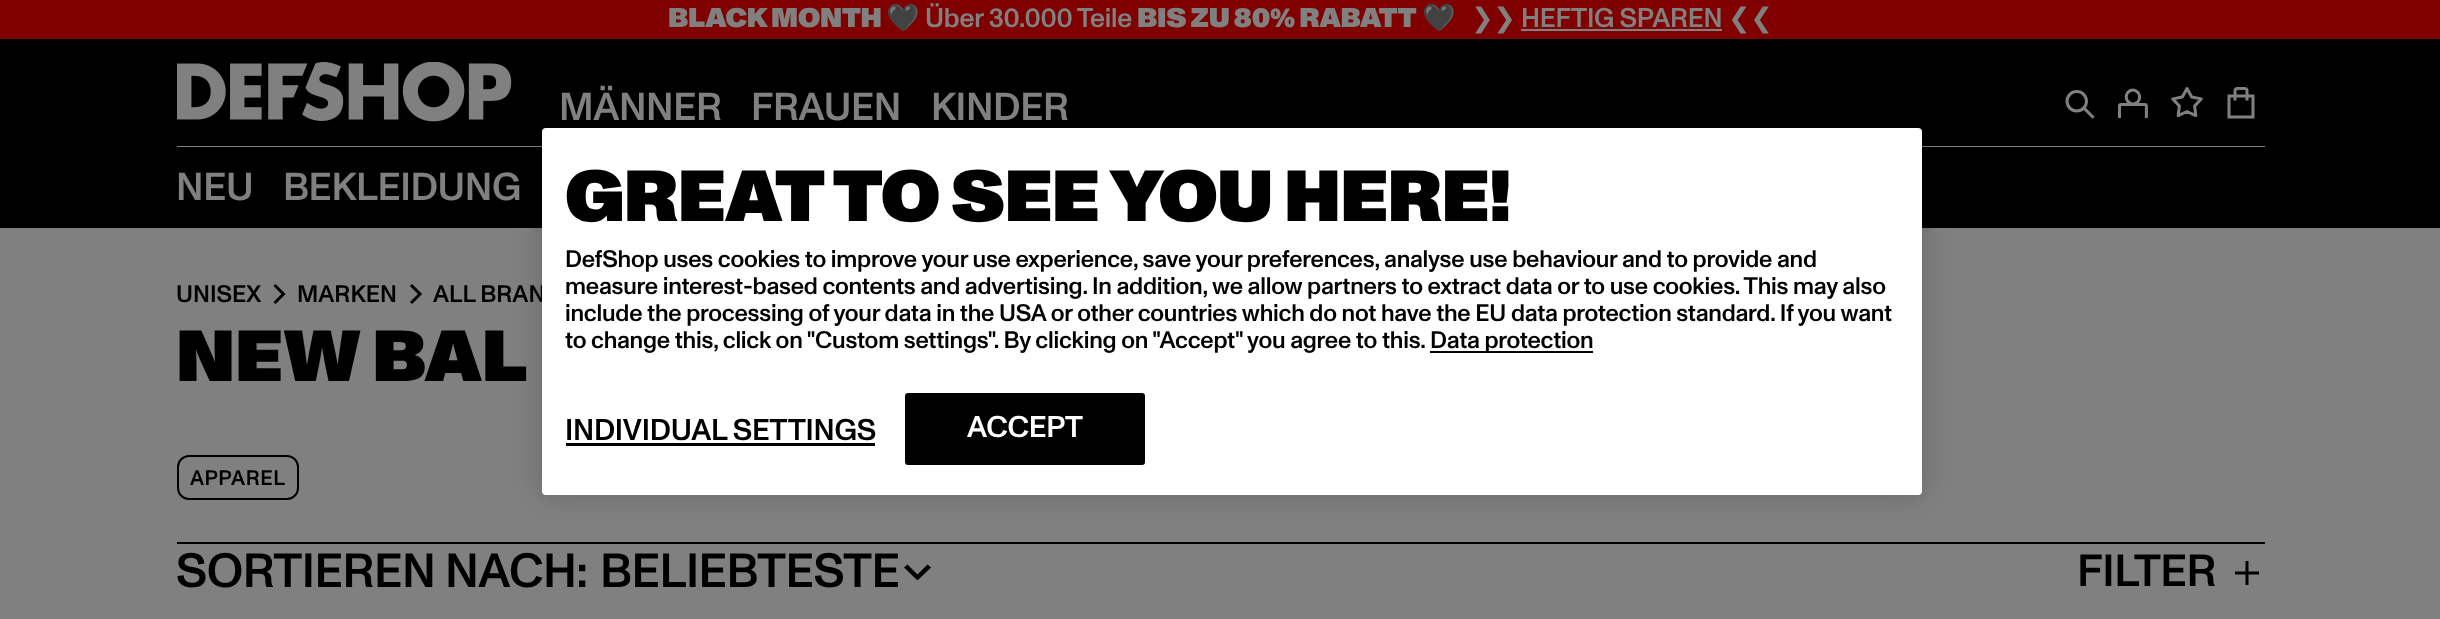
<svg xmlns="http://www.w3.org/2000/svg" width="2440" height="619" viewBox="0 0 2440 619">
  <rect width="100%" height="100%" fill="#808080"/>
  <path d="M0 0h2440v39H0z" fill="#800000"/>
  <path d="M1521 29h201v2H1521z" fill="#808080"/>
  <path d="M0 39h2440v189H0z" fill="#000"/>
  <path d="M177 146h2088v1H177z" fill="#808080"/>
  <image x="177" y="62" width="335" height="60" href="img/1.png"/>
  <image x="2065" y="90" width="30" height="29" href="img/2.png"/>
  <image x="2118" y="88" width="30" height="30" href="img/3.png"/>
  <image x="2171" y="87" width="32" height="31" href="img/4.png"/>
  <image x="2227" y="87" width="28" height="32" href="img/5.png"/>
  <image x="273" y="284" width="13" height="20" href="img/6.png"/>
  <image x="410" y="284" width="12" height="20" href="img/7.png"/>
  <rect x="178" y="456" width="120" height="43" rx="11" fill="none" stroke="#000" stroke-width="2"/>
  <path d="M177 542h2088v2H177z" fill="#000"/>
  <path d="M907.5 564.5L920 577L917 580L904 567.5Z" fill="#000"/>
  <path d="M915 577L927.5 564.5L931 567.5L918 580Z" fill="#000"/>
  <image x="2235" y="561" width="24" height="24" href="img/8.png"/>
  <rect x="542" y="128" width="1380" height="367" rx="4" fill="#00000033" filter="blur(13.5px)"/>
  <text x="668" y="27" font-family="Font" font-size="27" font-weight="900" letter-spacing="-0.25" fill="#808080">BLACK MONTH</text>
  <text x="886" y="27" font-family="Noto Color Emoji" font-size="27" letter-spacing="-0.25" fill="#808080">🖤</text>
  <text x="925" y="27" font-family="Font" font-size="27" font-weight="500" letter-spacing="-0.25" fill="#808080">Über 30.000 Teile</text>
  <text x="1137" y="27" font-family="Font" font-size="27" font-weight="900" letter-spacing="-0.25" fill="#808080">BIS ZU 80% RABATT</text>
  <text x="1422" y="27" font-family="Noto Color Emoji" font-size="27" letter-spacing="-0.25" fill="#808080">🖤</text>
  <text x="1471" y="27" font-family="DejaVu Sans" font-size="27" letter-spacing="-0.25" fill="#808080">❯❯</text>
  <text x="1521" y="27" font-family="Font" font-size="27" font-weight="500" letter-spacing="-0.25" fill="#808080">HEFTIG SPAREN</text>
  <text x="1728" y="27" font-family="DejaVu Sans" font-size="27" letter-spacing="-0.25" fill="#808080">❮❮</text>
  <g font-family="Font" font-size="39" font-weight="500" letter-spacing="-0.4" fill="#808080">
    <text x="559" y="120">MÄNNER</text>
    <text x="751" y="120">FRAUEN</text>
    <text x="931" y="120">KINDER</text>
    <text x="176" y="200">NEU</text>
    <text x="283" y="200">BEKLEIDUNG</text>
  </g>
  <g font-family="Font" font-size="24" font-weight="500" fill="#000">
    <text x="176" y="302">UNISEX</text>
    <text x="297" y="302">MARKEN</text>
    <text x="433" y="302">ALL BRAN</text>
  </g>
  <text x="176" y="381" font-family="Font" font-size="72" font-weight="900" fill="#000">NEW BAL</text>
  <text x="190" y="485" font-family="Font" font-size="21" font-weight="500" letter-spacing="0.5" fill="#000">APPAREL</text>
  <g font-family="Font" font-size="48" font-weight="500" letter-spacing="-0.5" fill="#000">
    <text x="176" y="587">SORTIEREN NACH:</text>
    <text x="600" y="587">BELIEBTESTE</text>
  </g>
  <text x="2077" y="586" font-family="Font" font-size="45" font-weight="500" letter-spacing="-0.5" fill="#000">FILTER</text>
  <rect x="542" y="128" width="1380" height="367" rx="4" fill="#fff"/>
  <text x="565" y="221" font-family="Font" font-size="72" font-weight="900" letter-spacing="-0.75" fill="#000">GREAT TO SEE YOU HERE!</text>
  <g font-family="Font" font-size="24" font-weight="500" letter-spacing="-0.24" fill="#000">
    <text x="565" y="267">DefShop uses cookies to improve your use experience, save your preferences, analyse use behaviour and to provide and</text>
    <text x="565" y="294">measure interest-based contents and advertising. In addition, we allow partners to extract data or to use cookies. This may also</text>
    <text x="565" y="321">include the processing of your data in the USA or other countries which do not have the EU data protection standard. If you want</text>
    <text x="565" y="348">to change this, click on "Custom settings". By clicking on "Accept" you agree to this.</text>
  </g>
  <path d="M1430 351h163v2H1430z" fill="#000"/>
  <text x="1430" y="348" font-family="Font" font-size="24" font-weight="500" letter-spacing="-0.24" fill="#000">Data protection</text>
  <text x="565" y="440" font-family="Font" font-size="30" font-weight="500" letter-spacing="-0.25" fill="#000">INDIVIDUAL SETTINGS</text>
  <path d="M566 443h309v3H566z" fill="#000"/>
  <rect x="905" y="393" width="240" height="72" rx="3" fill="#000"/>
  <text x="967" y="437" font-family="Font" font-size="30" font-weight="500" letter-spacing="-0.25" fill="#fff">ACCEPT</text>
</svg>
